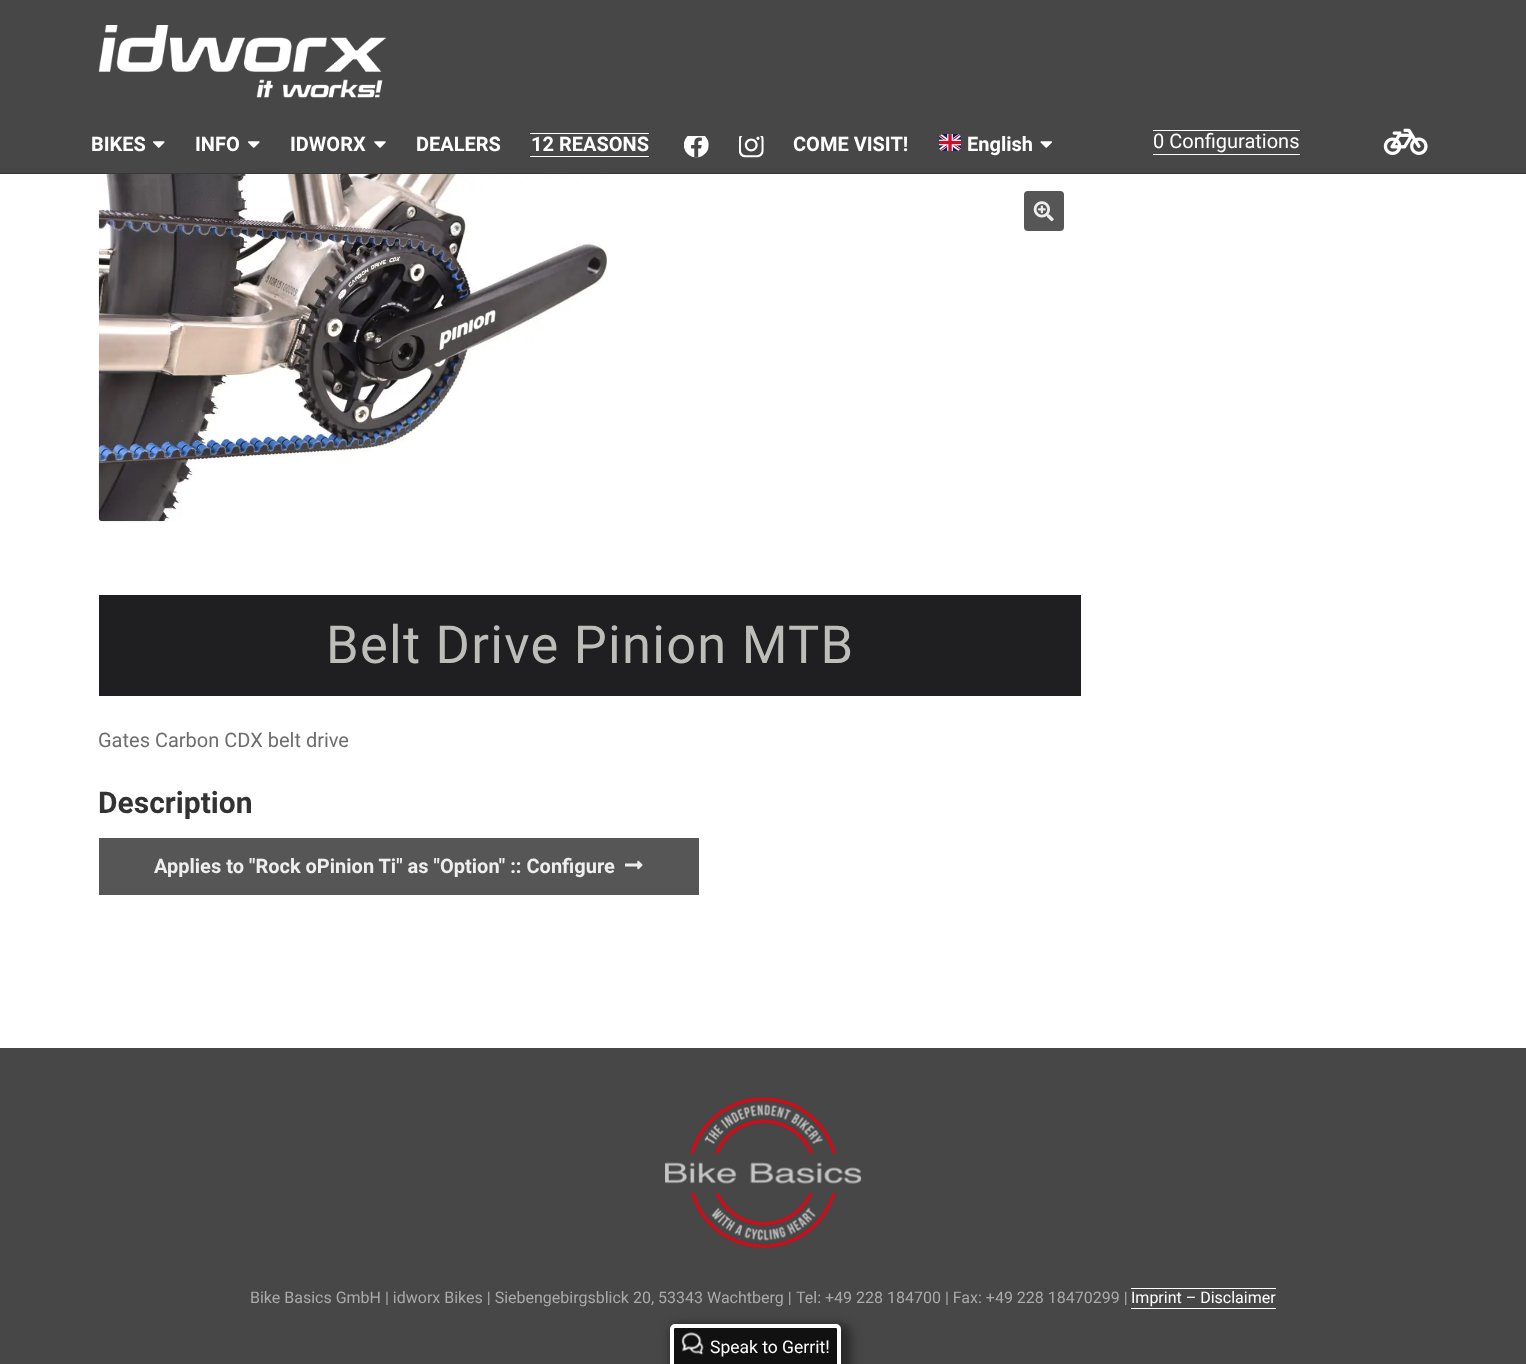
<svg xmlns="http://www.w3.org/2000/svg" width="1526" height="1364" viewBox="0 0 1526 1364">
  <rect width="100%" height="100%" fill="#fff"/>
  <path d="M0 0h1526v173H0z" fill="#474747"/>
  <path d="M0 173h1526v1H0z" fill="#383838"/>
  <image x="98" y="25" width="288" height="73" href="img/1.png"/>
  <image x="153" y="141" width="12" height="7" href="img/2.png"/>
  <image x="248" y="141" width="12" height="7" href="img/2.png"/>
  <image x="374" y="141" width="12" height="7" href="img/3.png"/>
  <path d="M530 156h119v1H530z" fill="#fff"/>
  <path d="M530 133h119v1H530z" fill="#fff"/>
  <image x="684" y="136" width="25" height="22" href="img/4.png"/>
  <image x="739" y="136" width="25" height="22" href="img/5.png"/>
  <image x="939" y="134" width="22" height="17" href="img/6.png"/>
  <image x="1040" y="141" width="12" height="7" href="img/7.png"/>
  <path d="M1153 154h147v1H1153z" fill="#fff"/>
  <path d="M1153 130h147v1H1153z" fill="#fff"/>
  <image x="1383" y="128" width="45" height="27" href="img/8.png"/>
  <image x="98" y="174" width="511" height="348" href="img/9.png"/>
  <rect x="1024" y="191" width="40" height="40" rx="4" fill="#565656"/>
  <image x="1033" y="201" width="21" height="21" href="img/10.png"/>
  <path d="M99 595h982v101H99z" fill="#1f1e21"/>
  <path d="M99 838h600v57H99z" fill="#565656"/>
  <image x="625" y="860" width="18" height="10" href="img/11.png"/>
  <path d="M0 1048h1526v316H0z" fill="#474747"/>
  <image x="665" y="1097" width="197" height="151" href="img/12.png"/>
  <path d="M1131 1308h145v1H1131z" fill="#fff"/>
  <path d="M1131 1288h145v1H1131z" fill="#fff"/>
  <rect x="670" y="1324" width="181" height="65" rx="10" fill="#00000069" filter="blur(5px)"/>
  <rect x="672" y="1326" width="167" height="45" rx="3" fill="#111" stroke="#fff" stroke-width="4"/>
  <image x="681" y="1332" width="23" height="23" href="img/13.png"/>
  <g font-family="Roboto" font-size="20" font-weight="bold" fill="#fff">
    <text x="91" y="151">BIKES</text>
    <text x="195" y="151">INFO</text>
    <text x="290" y="151">IDWORX</text>
    <text x="416" y="151">DEALERS</text>
    <text x="531" y="151">12 REASONS</text>
    <text x="793" y="151">COME VISIT!</text>
    <text x="967" y="151">English</text>
  </g>
  <text x="1153" y="148" font-family="Roboto" font-size="20" fill="#fff">0 Configurations</text>
  <text x="326" y="663" font-family="Roboto" font-size="52.4" letter-spacing="1.25" fill="#bdbdba">Belt Drive Pinion MTB</text>
  <text x="98" y="747" font-family="Roboto" font-size="20" fill="#6d6d6d">Gates Carbon CDX belt drive</text>
  <text x="98" y="813" font-family="Roboto" font-size="30" font-weight="bold" fill="#333">Description</text>
  <text x="154" y="873" font-family="Roboto" font-size="20" font-weight="bold" fill="#eee">Applies to "Rock oPinion Ti" as "Option" :: Configure</text>
  <g font-family="Roboto" font-size="16" fill="#aaa">
    <text x="250" y="1303">Bike Basics GmbH | idworx Bikes | Siebengebirgsblick 20, 53343 Wachtberg |</text>
    <text x="796" y="1303">Tel: +49 228 184700 | Fax: +49 228 18470299 |</text>
  </g>
  <text x="1131" y="1303" font-family="Roboto" font-size="16" fill="#fff">Imprint – Disclaimer</text>
  <text x="710" y="1353" font-family="Roboto" font-size="17.5" fill="#fff">Speak to Gerrit!</text>
</svg>
